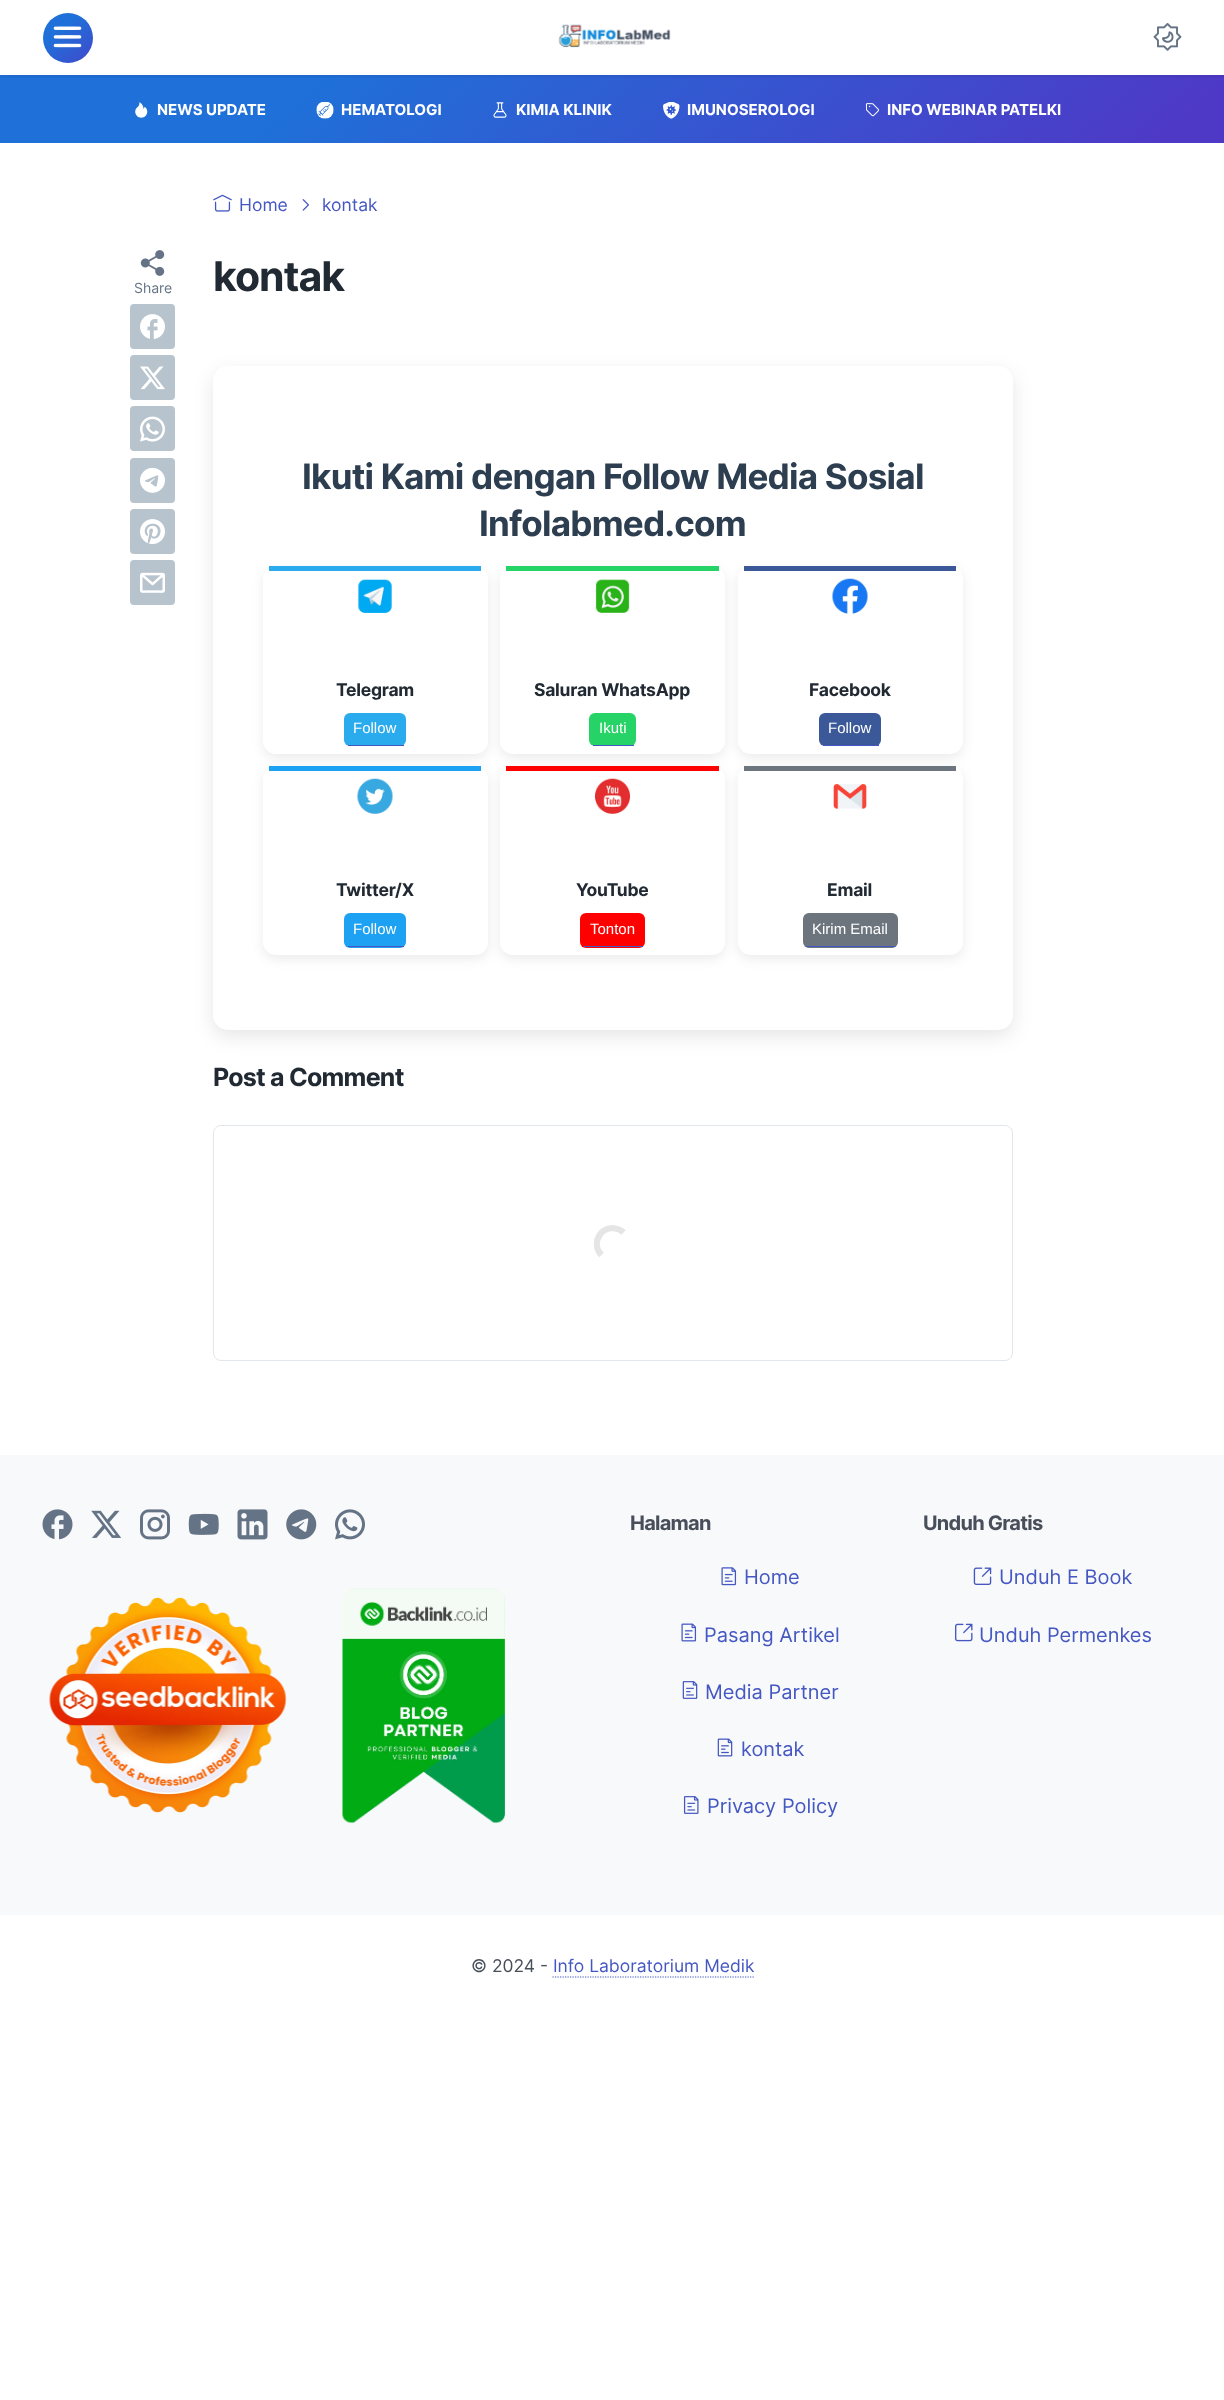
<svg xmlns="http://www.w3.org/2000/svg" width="1224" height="2400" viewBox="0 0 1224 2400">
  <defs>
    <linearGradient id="g1" gradientUnits="userSpaceOnUse" x1="343" y1="-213" x2="882" y2="430"><stop offset="0.25" stop-color="#1f70d9"/><stop offset="0.95" stop-color="#4e39c6"/></linearGradient>
    <clipPath id="clip1"><path d="M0 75h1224v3H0z"/></clipPath>
    <linearGradient id="g2" gradientUnits="userSpaceOnUse" x1="45" y1="11" x2="101" y2="78"><stop offset="0.28" stop-color="#1f70d9"/><stop offset="1" stop-color="#4e39c6"/></linearGradient>
  </defs>
  <rect width="100%" height="100%" fill="#fff"/>
  <path d="M0 75h1224v68H0z" fill="url(#g1)"/>
  <g clip-path="url(#clip1)">
    <path d="M0 1h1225v75H0z" fill="#0000001a" filter="blur(2px)"/>
  </g>
  <circle cx="68" cy="38" r="25" fill="url(#g2)"/>
  <image x="53" y="26" width="29" height="22" href="img/1.png"/>
  <image x="558" y="24" width="113" height="24" href="img/2.png"/>
  <image x="1153" y="23" width="29" height="28" href="img/3.png"/>
  <image x="135" y="102" width="13" height="16" href="img/4.png"/>
  <image x="316" y="102" width="18" height="17" href="img/5.png"/>
  <image x="493" y="102" width="14" height="16" href="img/6.png"/>
  <image x="663" y="102" width="17" height="17" href="img/7.png"/>
  <image x="865" y="103" width="15" height="14" href="img/8.png"/>
  <image x="213" y="194" width="19" height="18" href="img/9.png"/>
  <image x="302" y="199" width="7" height="12" href="img/10.png"/>
  <image x="140" y="250" width="25" height="26" href="img/11.png"/>
  <rect x="130" y="304" width="45" height="45" rx="4" fill="#b8c4cd"/>
  <image x="140" y="314" width="25" height="25" href="img/12.png"/>
  <rect x="130" y="355" width="45" height="45" rx="4" fill="#b8c4cd"/>
  <image x="140" y="366" width="25" height="24" href="img/13.png"/>
  <rect x="130" y="406" width="45" height="45" rx="4" fill="#b8c4cd"/>
  <image x="140" y="416" width="25" height="26" href="img/14.png"/>
  <rect x="130" y="458" width="45" height="45" rx="4" fill="#b8c4cd"/>
  <image x="140" y="467" width="25" height="26" href="img/15.png"/>
  <rect x="130" y="509" width="45" height="45" rx="4" fill="#b8c4cd"/>
  <image x="140" y="519" width="25" height="25" href="img/16.png"/>
  <rect x="130" y="560" width="45" height="45" rx="4" fill="#b8c4cd"/>
  <image x="140" y="572" width="25" height="21" href="img/17.png"/>
  <rect x="213" y="373" width="800" height="663" rx="15" fill="#0000001a" filter="blur(9.5px)"/>
  <rect x="213" y="366" width="800" height="664" rx="15" fill="#fff"/>
  <rect x="263" y="570" width="225" height="188" rx="13" fill="#00000014" filter="blur(6px)"/>
  <rect x="263" y="566" width="225" height="188" rx="13" fill="#fff"/>
  <path d="M269 566h212v5H269z" fill="#2aabee"/>
  <image x="358" y="579" width="34" height="34" href="img/18.png"/>
  <rect x="344" y="713" width="62" height="33" rx="6" fill="#2aabee"/>
  <path d="M348 745h56v1H348z" fill="#4457c2"/>
  <rect x="500" y="570" width="225" height="188" rx="13" fill="#00000014" filter="blur(6px)"/>
  <rect x="500" y="566" width="225" height="188" rx="13" fill="#fff"/>
  <path d="M506 566h213v5H506z" fill="#25d366"/>
  <image x="595" y="579" width="35" height="34" href="img/19.png"/>
  <rect x="589" y="713" width="47" height="33" rx="6" fill="#25d366"/>
  <path d="M593 745h41v1H593z" fill="#4457c2"/>
  <rect x="738" y="570" width="225" height="188" rx="13" fill="#00000014" filter="blur(6px)"/>
  <rect x="738" y="566" width="225" height="188" rx="13" fill="#fff"/>
  <path d="M744 566h212v5H744z" fill="#3b5998"/>
  <image x="832" y="578" width="36" height="36" href="img/20.png"/>
  <rect x="819" y="713" width="62" height="33" rx="6" fill="#3b5998"/>
  <path d="M823 745h56v1H823z" fill="#4457c2"/>
  <rect x="263" y="770" width="225" height="189" rx="13" fill="#00000014" filter="blur(6px)"/>
  <rect x="263" y="766" width="225" height="189" rx="13" fill="#fff"/>
  <path d="M269 766h212v5H269z" fill="#1da1f2"/>
  <image x="357" y="778" width="36" height="36" href="img/21.png"/>
  <rect x="344" y="913" width="62" height="35" rx="6" fill="#1da1f2"/>
  <path d="M348 946h56v1H348z" fill="#4457c2"/>
  <rect x="500" y="770" width="225" height="189" rx="13" fill="#00000014" filter="blur(6px)"/>
  <rect x="500" y="766" width="225" height="189" rx="13" fill="#fff"/>
  <path d="M506 766h213v5H506z" fill="#f00"/>
  <image x="595" y="778" width="35" height="36" href="img/22.png"/>
  <rect x="580" y="913" width="65" height="35" rx="6" fill="#f00"/>
  <path d="M584 946h59v1H584z" fill="#4457c2"/>
  <rect x="738" y="770" width="225" height="189" rx="13" fill="#00000014" filter="blur(6px)"/>
  <rect x="738" y="766" width="225" height="189" rx="13" fill="#fff"/>
  <path d="M744 766h212v5H744z" fill="#6c757d"/>
  <image x="833" y="784" width="34" height="25" href="img/23.png"/>
  <rect x="803" y="913" width="95" height="35" rx="6" fill="#6c757d"/>
  <path d="M806 946h89v1H806z" fill="#4457c2"/>
  <rect x="213.5" y="1125.5" width="799" height="235" rx="7.5" fill="none" stroke="#e1e7ec"/>
  <path d="M601.5 1255C590.5 1244 600.5 1225.5 615.5 1228.5C618.5 1229 621.5 1230.5 623.5 1232.5" fill="none" stroke="#e5e5e5" stroke-width="6.2"/>
  <path d="M0 1455h1224v460H0z" fill="#f8f9fa"/>
  <image x="42" y="1509" width="31" height="31" href="img/24.png"/>
  <image x="91" y="1510" width="31" height="28" href="img/25.png"/>
  <image x="140" y="1509" width="30" height="31" href="img/26.png"/>
  <image x="188" y="1513" width="31" height="22" href="img/27.png"/>
  <image x="237" y="1509" width="31" height="31" href="img/28.png"/>
  <image x="286" y="1509" width="31" height="31" href="img/29.png"/>
  <image x="335" y="1509" width="30" height="31" href="img/30.png"/>
  <image x="49" y="1597" width="238" height="216" href="img/31.png"/>
  <image x="342" y="1588" width="163" height="236" href="img/32.png"/>
  <image x="721" y="1567" width="16" height="19" href="img/33.png"/>
  <image x="681" y="1623" width="16" height="19" href="img/34.png"/>
  <image x="682" y="1681" width="16" height="18" href="img/35.png"/>
  <image x="717" y="1738" width="16" height="19" href="img/36.png"/>
  <image x="683" y="1796" width="16" height="18" href="img/37.png"/>
  <image x="973" y="1567" width="19" height="18" href="img/38.png"/>
  <image x="955" y="1623" width="18" height="19" href="img/39.png"/>
  <path d="M552.5 1977H754" fill="none" stroke="#4457c2" stroke-width="1.2" stroke-dasharray="1.25 1.25"/>
  <g font-family="Inter" font-size="15" font-weight="bold" fill="#fff">
    <text x="157" y="115">NEWS UPDATE</text>
    <text x="341" y="115">HEMATOLOGI</text>
    <text x="516" y="115">KIMIA KLINIK</text>
    <text x="687" y="115">IMUNOSEROLOGI</text>
    <text x="887" y="115">INFO WEBINAR PATELKI</text>
  </g>
  <g font-family="Inter" font-size="17.5" fill="#4457c2">
    <text x="239" y="211">Home</text>
    <text x="322" y="211">kontak</text>
  </g>
  <text x="134" y="293" font-family="Inter" font-size="14" fill="#657386">Share</text>
  <text x="213" y="291" font-family="Inter" font-size="41" font-weight="bold" letter-spacing="-1" fill="#212933">kontak</text>
  <g font-family="Inter" font-size="35" font-weight="bold" letter-spacing="-0.75" fill="#2c3e50">
    <text x="302" y="489">Ikuti Kami dengan Follow Media Sosial</text>
    <text x="479" y="536">Infolabmed.com</text>
  </g>
  <text x="336" y="696" font-family="Inter" font-size="17.5" font-weight="bold" letter-spacing="-0.25" fill="#212933">Telegram</text>
  <text x="353" y="733" font-family="Liberation Sans" font-size="15" fill="#fff">Follow</text>
  <text x="534" y="696" font-family="Inter" font-size="17.5" font-weight="bold" letter-spacing="-0.25" fill="#212933">Saluran WhatsApp</text>
  <text x="599" y="733" font-family="Liberation Sans" font-size="15" fill="#fff">Ikuti</text>
  <text x="809" y="696" font-family="Inter" font-size="17.5" font-weight="bold" letter-spacing="-0.25" fill="#212933">Facebook</text>
  <text x="828" y="733" font-family="Liberation Sans" font-size="15" fill="#fff">Follow</text>
  <text x="336" y="896" font-family="Inter" font-size="17.5" font-weight="bold" letter-spacing="-0.25" fill="#212933">Twitter/X</text>
  <text x="353" y="934" font-family="Liberation Sans" font-size="15" fill="#fff">Follow</text>
  <text x="576" y="896" font-family="Inter" font-size="17.5" font-weight="bold" letter-spacing="-0.25" fill="#212933">YouTube</text>
  <text x="590" y="934" font-family="Liberation Sans" font-size="15" fill="#fff">Tonton</text>
  <text x="827" y="896" font-family="Inter" font-size="17.5" font-weight="bold" letter-spacing="-0.25" fill="#212933">Email</text>
  <text x="812" y="934" font-family="Liberation Sans" font-size="15" fill="#fff">Kirim Email</text>
  <text x="213" y="1086" font-family="Inter" font-size="25" font-weight="bold" letter-spacing="-0.75" fill="#212933">Post a Comment</text>
  <text x="630" y="1530" font-family="Inter" font-size="20" font-weight="bold" letter-spacing="-0.75" fill="#484f5b">Halaman</text>
  <g font-family="Inter" font-size="20" fill="#4457c2">
    <text x="744" y="1584">Home</text>
    <text x="704" y="1642">Pasang Artikel</text>
    <text x="705" y="1699">Media Partner</text>
    <text x="741" y="1756">kontak</text>
    <text x="707" y="1813">Privacy Policy</text>
  </g>
  <text x="923" y="1530" font-family="Inter" font-size="20" font-weight="bold" letter-spacing="-0.75" fill="#484f5b">Unduh Gratis</text>
  <g font-family="Inter" font-size="20" fill="#4457c2">
    <text x="999" y="1584">Unduh E Book</text>
    <text x="979" y="1642">Unduh Permenkes</text>
  </g>
  <text x="471" y="1972" font-family="Inter" font-size="17.5" fill="#484f5b">© 2024 -</text>
  <text x="553" y="1972" font-family="Inter" font-size="17.5" fill="#4457c2">Info Laboratorium Medik</text>
</svg>
